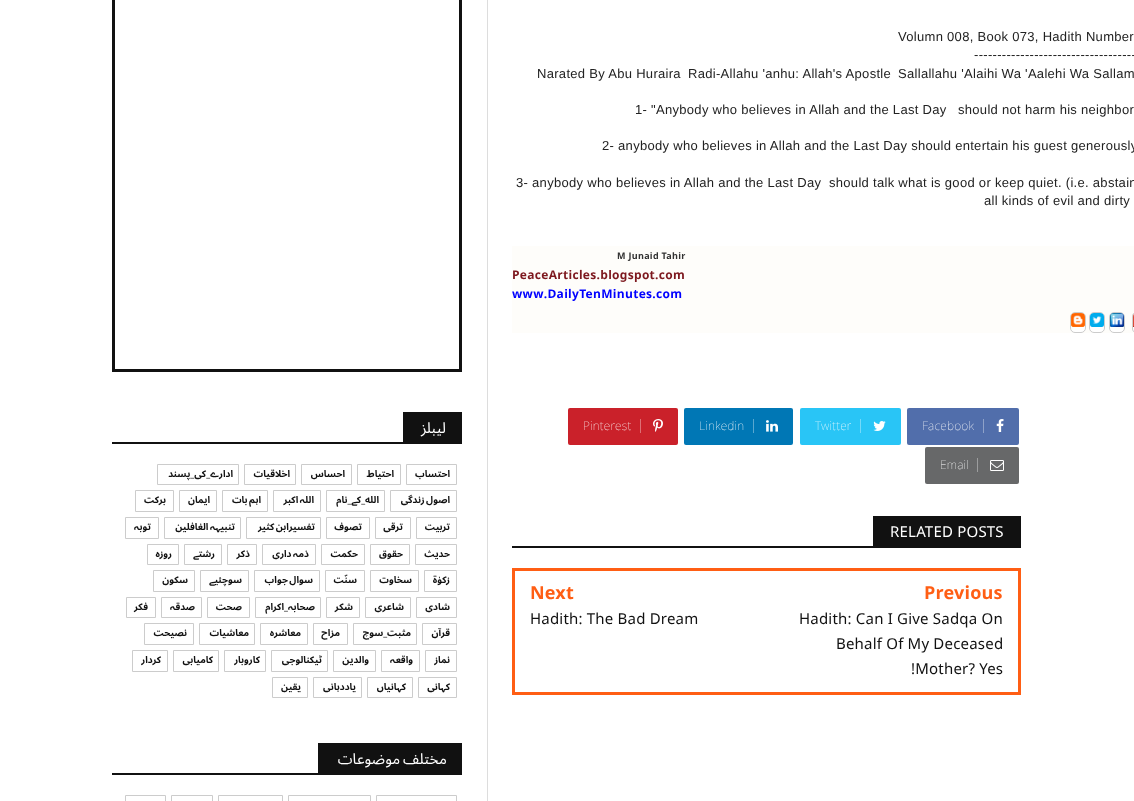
<svg xmlns="http://www.w3.org/2000/svg" width="1134" height="801" viewBox="0 0 1134 801">
  <rect width="100%" height="100%" fill="#fff"/>
  <path d="M113.5 -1.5h347v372H113.5z" fill="none" stroke="#111" stroke-width="3"/>
  <path d="M403 412h59v32H403z" fill="#111"/>
  <path d="M112 442h291v2H112z" fill="#111"/>
  <path d="M157.5 464.5h81v20H157.5z" fill="none" stroke="#ccc"/>
  <path d="M244.5 464.5h51v20H244.5z" fill="none" stroke="#ccc"/>
  <path d="M301.5 464.5h50v20H301.5z" fill="none" stroke="#ccc"/>
  <path d="M357.5 464.5h43v20H357.5z" fill="none" stroke="#ccc"/>
  <path d="M406.5 464.5h50v20H406.5z" fill="none" stroke="#ccc"/>
  <path d="M135.5 490.5h38v21H135.5z" fill="none" stroke="#ccc"/>
  <path d="M179.5 490.5h37v21H179.5z" fill="none" stroke="#ccc"/>
  <path d="M222.5 490.5h45v21H222.5z" fill="none" stroke="#ccc"/>
  <path d="M273.5 490.5h47v21H273.5z" fill="none" stroke="#ccc"/>
  <path d="M326.5 490.5h58v21H326.5z" fill="none" stroke="#ccc"/>
  <path d="M390.5 490.5h66v21H390.5z" fill="none" stroke="#ccc"/>
  <path d="M125.5 517.5h33v21H125.5z" fill="none" stroke="#ccc"/>
  <path d="M164.5 517.5h76v21H164.5z" fill="none" stroke="#ccc"/>
  <path d="M246.5 517.5h74v21H246.5z" fill="none" stroke="#ccc"/>
  <path d="M326.5 517.5h43v21H326.5z" fill="none" stroke="#ccc"/>
  <path d="M375.5 517.5h35v21H375.5z" fill="none" stroke="#ccc"/>
  <path d="M416.5 517.5h40v21H416.5z" fill="none" stroke="#ccc"/>
  <path d="M147.5 544.5h31v20H147.5z" fill="none" stroke="#ccc"/>
  <path d="M184.5 544.5h37v20H184.5z" fill="none" stroke="#ccc"/>
  <path d="M227.5 544.5h29v20H227.5z" fill="none" stroke="#ccc"/>
  <path d="M262.5 544.5h53v20H262.5z" fill="none" stroke="#ccc"/>
  <path d="M321.5 544.5h43v20H321.5z" fill="none" stroke="#ccc"/>
  <path d="M370.5 544.5h39v20H370.5z" fill="none" stroke="#ccc"/>
  <path d="M415.5 544.5h41v20H415.5z" fill="none" stroke="#ccc"/>
  <path d="M153.5 570.5h41v21H153.5z" fill="none" stroke="#ccc"/>
  <path d="M200.5 570.5h48v21H200.5z" fill="none" stroke="#ccc"/>
  <path d="M254.5 570.5h65v21H254.5z" fill="none" stroke="#ccc"/>
  <path d="M325.5 570.5h39v21H325.5z" fill="none" stroke="#ccc"/>
  <path d="M370.5 570.5h48v21H370.5z" fill="none" stroke="#ccc"/>
  <path d="M424.5 570.5h32v21H424.5z" fill="none" stroke="#ccc"/>
  <path d="M126.5 597.5h29v20H126.5z" fill="none" stroke="#ccc"/>
  <path d="M161.5 597.5h40v20H161.5z" fill="none" stroke="#ccc"/>
  <path d="M207.5 597.5h42v20H207.5z" fill="none" stroke="#ccc"/>
  <path d="M255.5 597.5h65v20H255.5z" fill="none" stroke="#ccc"/>
  <path d="M326.5 597.5h33v20H326.5z" fill="none" stroke="#ccc"/>
  <path d="M365.5 597.5h45v20H365.5z" fill="none" stroke="#ccc"/>
  <path d="M416.5 597.5h40v20H416.5z" fill="none" stroke="#ccc"/>
  <path d="M144.5 623.5h49v21H144.5z" fill="none" stroke="#ccc"/>
  <path d="M199.5 623.5h55v21H199.5z" fill="none" stroke="#ccc"/>
  <path d="M260.5 623.5h47v21H260.5z" fill="none" stroke="#ccc"/>
  <path d="M313.5 623.5h34v21H313.5z" fill="none" stroke="#ccc"/>
  <path d="M353.5 623.5h63v21H353.5z" fill="none" stroke="#ccc"/>
  <path d="M422.5 623.5h34v21H422.5z" fill="none" stroke="#ccc"/>
  <path d="M132.5 650.5h35v21H132.5z" fill="none" stroke="#ccc"/>
  <path d="M173.5 650.5h45v21H173.5z" fill="none" stroke="#ccc"/>
  <path d="M224.5 650.5h41v21H224.5z" fill="none" stroke="#ccc"/>
  <path d="M271.5 650.5h56v21H271.5z" fill="none" stroke="#ccc"/>
  <path d="M333.5 650.5h42v21H333.5z" fill="none" stroke="#ccc"/>
  <path d="M381.5 650.5h38v21H381.5z" fill="none" stroke="#ccc"/>
  <path d="M425.5 650.5h31v21H425.5z" fill="none" stroke="#ccc"/>
  <path d="M272.5 677.5h35v20H272.5z" fill="none" stroke="#ccc"/>
  <path d="M313.5 677.5h48v20H313.5z" fill="none" stroke="#ccc"/>
  <path d="M367.5 677.5h45v20H367.5z" fill="none" stroke="#ccc"/>
  <path d="M418.5 677.5h38v20H418.5z" fill="none" stroke="#ccc"/>
  <path d="M318 743h144v32H318z" fill="#111"/>
  <path d="M112 773h206v2H112z" fill="#111"/>
  <path d="M125.5 795.5h40v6H125.5z" fill="none" stroke="#ccc"/>
  <path d="M171.5 795.5h41v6H171.5z" fill="none" stroke="#ccc"/>
  <path d="M218.5 795.5h64v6H218.5z" fill="none" stroke="#ccc"/>
  <path d="M288.5 795.5h82v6H288.5z" fill="none" stroke="#ccc"/>
  <path d="M376.5 795.5h80v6H376.5z" fill="none" stroke="#ccc"/>
  <path d="M487 0h1v801H487z" fill="#ddd"/>
  <path d="M512 246h622v87H512z" fill="#fefdfa"/>
  <rect x="1070.5" y="312.5" width="15" height="20" rx="4.5" fill="#fff" stroke="#ccc"/>
  <rect x="1089.5" y="312.5" width="15" height="20" rx="4.5" fill="#fff" stroke="#ccc"/>
  <rect x="1109.5" y="312.5" width="15" height="20" rx="4.5" fill="#fff" stroke="#ccc"/>
  <rect x="1132.5" y="312.5" width="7" height="20" rx="4.5" fill="#fff" stroke="#ccc"/>
  <image x="1071" y="313" width="14" height="14" href="img/1.png"/>
  <image x="1090" y="313" width="14" height="14" href="img/2.png"/>
  <image x="1110" y="313" width="14" height="14" href="img/3.png"/>
  <image x="1133" y="314" width="1" height="13" href="img/4.png"/>
  <rect x="568" y="408" width="110" height="37" rx="2" fill="#ca212a"/>
  <path d="M640 419h1v14H640z" fill="#dd6f75"/>
  <image x="653" y="419" width="10" height="13" href="img/5.png"/>
  <rect x="684" y="408" width="109" height="37" rx="2" fill="#0077b5"/>
  <path d="M753 419h1v14H753z" fill="#59a7cf"/>
  <image x="766" y="420" width="12" height="12" href="img/6.png"/>
  <rect x="800" y="408" width="101" height="37" rx="2" fill="#29c5f6"/>
  <path d="M860 419h1v14H860z" fill="#74d9f9"/>
  <image x="873" y="421" width="13" height="10" href="img/7.png"/>
  <rect x="907" y="408" width="112" height="37" rx="2" fill="#516eab"/>
  <path d="M983 419h1v14H983z" fill="#8ea1c8"/>
  <image x="996" y="419" width="8" height="13" href="img/8.png"/>
  <rect x="925" y="447" width="94" height="37" rx="2" fill="#676869"/>
  <path d="M977 458h1v14H977z" fill="#9c9d9e"/>
  <image x="990" y="460" width="14" height="11" href="img/9.png"/>
  <path d="M873 516h148v32H873z" fill="#111"/>
  <path d="M512 546h361v2H512z" fill="#111"/>
  <path d="M513.5 569.5h506v124H513.5z" fill="none" stroke="#ff5e14" stroke-width="3"/>
  <text x="446" y="433" font-family="Noto Sans Arabic" font-size="15" letter-spacing="0.2" direction="rtl" fill="#fff">لیبلز</text>
  <g font-family="Noto Sans Arabic" font-size="9.5" font-weight="bold" letter-spacing="0.2" direction="rtl" fill="#111">
    <text x="233" y="477">ادارے_کی_پسند</text>
    <text x="290" y="477">اخلاقیات</text>
    <text x="345" y="477">احساس</text>
    <text x="394" y="477">احتیاط</text>
    <text x="450" y="477">احتساب</text>
    <text x="166" y="503">برکت</text>
    <text x="210" y="503">ایمان</text>
    <text x="261" y="503" word-spacing="-1">اہم بات</text>
    <text x="314" y="503" word-spacing="-1">اللہ اکبر</text>
    <text x="379" y="503">الله_کے_نام</text>
    <text x="450" y="503" word-spacing="-1">اصول زندگی</text>
    <text x="151" y="530">توبہ</text>
    <text x="235" y="530" word-spacing="-1">تنبیہہ الغافلین</text>
    <text x="315" y="530" word-spacing="-1">تفسیرابن کثیر</text>
    <text x="362" y="530">تصوف</text>
    <text x="403" y="530">ترقی</text>
    <text x="450" y="530">تربیت</text>
    <text x="172" y="557">روزہ</text>
    <text x="215" y="557">رشتے</text>
    <text x="250" y="557">ذکر</text>
    <text x="309" y="557" word-spacing="-1">ذمہ داری</text>
    <text x="358" y="557">حکمت</text>
    <text x="403" y="557">حقوق</text>
    <text x="450" y="557">حدیث</text>
    <text x="188" y="583">سکون</text>
    <text x="242" y="583">سوچئیے</text>
    <text x="313" y="583" word-spacing="-1">سوال جواب</text>
    <text x="357" y="583">سنّت</text>
    <text x="412" y="583">سخاوت</text>
    <text x="450" y="583">زکوٰۃ</text>
    <text x="148" y="610">فکر</text>
    <text x="195" y="610">صدقہ</text>
    <text x="242" y="610">صحت</text>
    <text x="315" y="610">صحابہ_اکرام</text>
    <text x="353" y="610">شکر</text>
    <text x="404" y="610">شاعری</text>
    <text x="450" y="610">شادی</text>
    <text x="187" y="636">نصیحت</text>
    <text x="249" y="636">معاشیات</text>
    <text x="301" y="636">معاشرہ</text>
    <text x="340" y="636">مزاح</text>
    <text x="411" y="636">مثبت_سوچ</text>
    <text x="450" y="636">قرآن</text>
    <text x="161" y="663">کردار</text>
    <text x="213" y="663">کامیابی</text>
    <text x="260" y="663">کاروبار</text>
    <text x="322" y="663">ٹیکنالوجی</text>
    <text x="369" y="663">والدین</text>
    <text x="413" y="663">واقعہ</text>
    <text x="450" y="663">نماز</text>
    <text x="301" y="690">یقین</text>
    <text x="356" y="690">یاددہانی</text>
    <text x="406" y="690">کہانیاں</text>
    <text x="450" y="690">کہانی</text>
  </g>
  <text x="447" y="764" word-spacing="-1" font-family="Noto Sans Arabic" font-size="15" letter-spacing="0.2" direction="rtl" fill="#fff">مختلف موضوعات</text>
  <g font-family="Liberation Sans" font-size="13" letter-spacing="0.3" fill="#222">
    <text x="898" y="41">Volumn 008, Book 073, Hadith Number</text>
    <text x="974" y="59">-----------------------------------</text>
    <text x="537" y="78">Narated By Abu Huraira</text>
    <text x="688" y="78">Radi-Allahu 'anhu: Allah's Apostle</text>
    <text x="898" y="78">Sallallahu 'Alaihi Wa 'Aalehi Wa Sallam</text>
    <text x="635" y="114">1- "Anybody who believes in Allah and the Last Day</text>
    <text x="958" y="114">should not harm his neighbor</text>
    <text x="602" y="150">2- anybody who believes in Allah and the Last Day should entertain his guest generously</text>
    <text x="516" y="187">3- anybody who believes in Allah and the Last Day</text>
    <text x="829" y="187">should talk what is good or keep quiet. (i.e. abstain</text>
    <text x="984" y="205">all kinds of evil and dirty</text>
  </g>
  <text x="617" y="259" font-family="Noto Sans Arabic" font-size="9" font-weight="bold" letter-spacing="0.3" fill="#333">M Junaid Tahir</text>
  <text x="512" y="279" font-family="Noto Sans Arabic" font-size="12" font-weight="bold" letter-spacing="0.3" fill="#7d181e">PeaceArticles.blogspot.com</text>
  <text x="512" y="298" font-family="Noto Sans Arabic" font-size="12" font-weight="bold" letter-spacing="0.3" fill="#00f">www.DailyTenMinutes.com</text>
  <g font-family="Noto Sans Arabic" font-size="12" font-weight="100" letter-spacing="0.2" fill="#fff">
    <text x="583" y="430">Pinterest</text>
    <text x="699" y="430">Linkedin</text>
    <text x="815" y="430">Twitter</text>
    <text x="922" y="430">Facebook</text>
    <text x="940" y="469">Email</text>
  </g>
  <text x="890" y="537" font-family="Noto Sans Arabic" font-size="15" letter-spacing="0.2" fill="#fff">RELATED POSTS</text>
  <text x="530" y="599" font-family="Noto Sans Arabic" font-size="18" font-weight="bold" letter-spacing="0.2" fill="#ff5e14">Next</text>
  <text x="530" y="624" font-family="Noto Sans Arabic" font-size="15" letter-spacing="0.2" fill="#111">Hadith: The Bad Dream</text>
  <text x="924" y="599" font-family="Noto Sans Arabic" font-size="18" font-weight="bold" letter-spacing="0.2" fill="#ff5e14">Previous</text>
  <g font-family="Noto Sans Arabic" font-size="15" letter-spacing="0.2" fill="#111">
    <text x="799" y="624">Hadith: Can I Give Sadqa On</text>
    <text x="836" y="649">Behalf Of My Deceased</text>
    <text x="911" y="674">!Mother? Yes</text>
  </g>
</svg>
